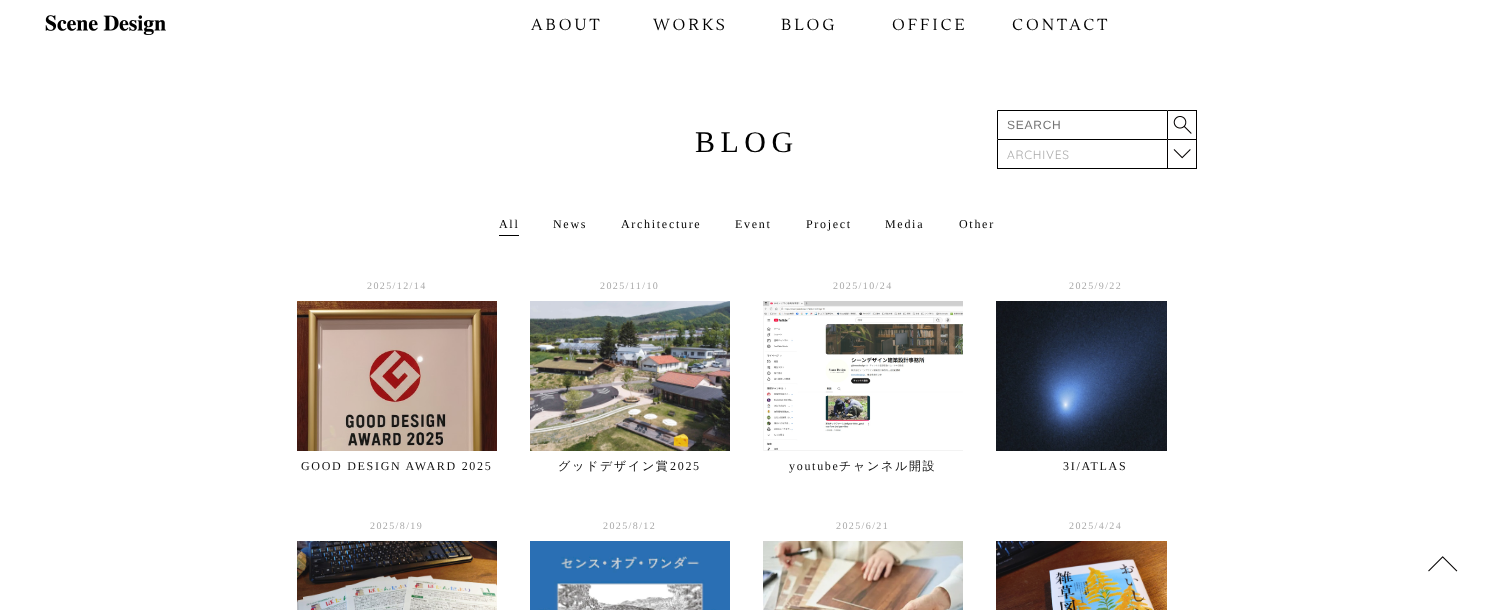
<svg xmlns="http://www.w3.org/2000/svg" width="1493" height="610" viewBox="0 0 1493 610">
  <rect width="100%" height="100%" fill="#fff"/>
  <image x="45" y="15" width="121" height="20" href="img/1.png"/>
  <path d="M997.5 110.5h170v29H997.5z" fill="none" stroke="#000"/>
  <image x="1168" y="110" width="29" height="30" href="img/2.png"/>
  <image x="1167" y="140" width="30" height="28" href="img/3.png"/>
  <path d="M997 168h200v1H997z" fill="#000"/>
  <path d="M997 140h1v29H997z" fill="#000"/>
  <path d="M499 235h20v1H499z" fill="#000"/>
  <image x="297" y="301" width="200" height="150" href="img/4.png"/>
  <image x="530" y="301" width="200" height="150" href="img/5.png"/>
  <image x="763" y="301" width="200" height="150" href="img/6.png"/>
  <image x="996" y="301" width="171" height="150" href="img/7.png"/>
  <image x="297" y="541" width="200" height="69" href="img/8.png"/>
  <image x="530" y="541" width="200" height="69" href="img/9.png"/>
  <image x="763" y="541" width="200" height="69" href="img/10.png"/>
  <image x="996" y="541" width="171" height="69" href="img/11.png"/>
  <image x="1428" y="556" width="30" height="16" href="img/12.png"/>
  <g font-family="Lustria" font-size="16" letter-spacing="3" fill="#000">
    <text x="531" y="30">ABOUT</text>
    <text x="653" y="30">WORKS</text>
    <text x="781" y="30">BLOG</text>
    <text x="892" y="30">OFFICE</text>
    <text x="1012" y="30">CONTACT</text>
  </g>
  <text x="695" y="152" font-family="Liberation Serif" font-size="30" letter-spacing="5.5" fill="#000">BLOG</text>
  <text x="1007" y="129" font-family="Liberation Sans" font-size="12" letter-spacing="0.75" fill="#757575">SEARCH</text>
  <text x="1007" y="159" font-family="Quicksand" font-size="12" font-weight="300" letter-spacing="0.75" fill="#aaa">ARCHIVES</text>
  <g font-family="Liberation Serif" font-size="12" letter-spacing="1.7" fill="#000">
    <text x="499" y="228">All</text>
    <text x="553" y="228">News</text>
    <text x="621" y="228">Architecture</text>
    <text x="735" y="228">Event</text>
    <text x="806" y="228">Project</text>
    <text x="885" y="228">Media</text>
    <text x="959" y="228">Other</text>
  </g>
  <text x="367" y="289" font-family="Liberation Serif" font-size="10" letter-spacing="1.4" fill="#aaa">2025/12/14</text>
  <text x="301" y="470" font-family="Liberation Serif" font-size="12" letter-spacing="1.7" fill="#0f0f0f">GOOD DESIGN AWARD 2025</text>
  <text x="600" y="289" font-family="Liberation Serif" font-size="10" letter-spacing="1.4" fill="#aaa">2025/11/10</text>
  <text x="558" y="470" font-family="WenQuanYi Zen Hei" font-size="12" font-weight="500" letter-spacing="1.7" fill="#0f0f0f">グッドデザイン賞</text>
  <text x="670" y="470" font-family="Liberation Serif" font-size="12" letter-spacing="1.7" fill="#0f0f0f">2025</text>
  <text x="833" y="289" font-family="Liberation Serif" font-size="10" letter-spacing="1.4" fill="#aaa">2025/10/24</text>
  <text x="789" y="470" font-family="Liberation Serif" font-size="12" letter-spacing="1.7" fill="#0f0f0f">youtube</text>
  <text x="839" y="470" font-family="WenQuanYi Zen Hei" font-size="12" font-weight="500" letter-spacing="1.7" fill="#0f0f0f">チャンネル開設</text>
  <text x="1069" y="289" font-family="Liberation Serif" font-size="10" letter-spacing="1.4" fill="#aaa">2025/9/22</text>
  <text x="1063" y="470" font-family="Liberation Serif" font-size="12" letter-spacing="1.7" fill="#0f0f0f">3I/ATLAS</text>
  <g font-family="Liberation Serif" font-size="10" letter-spacing="1.4" fill="#aaa">
    <text x="370" y="529">2025/8/19</text>
    <text x="603" y="529">2025/8/12</text>
    <text x="836" y="529">2025/6/21</text>
    <text x="1069" y="529">2025/4/24</text>
  </g>
</svg>
